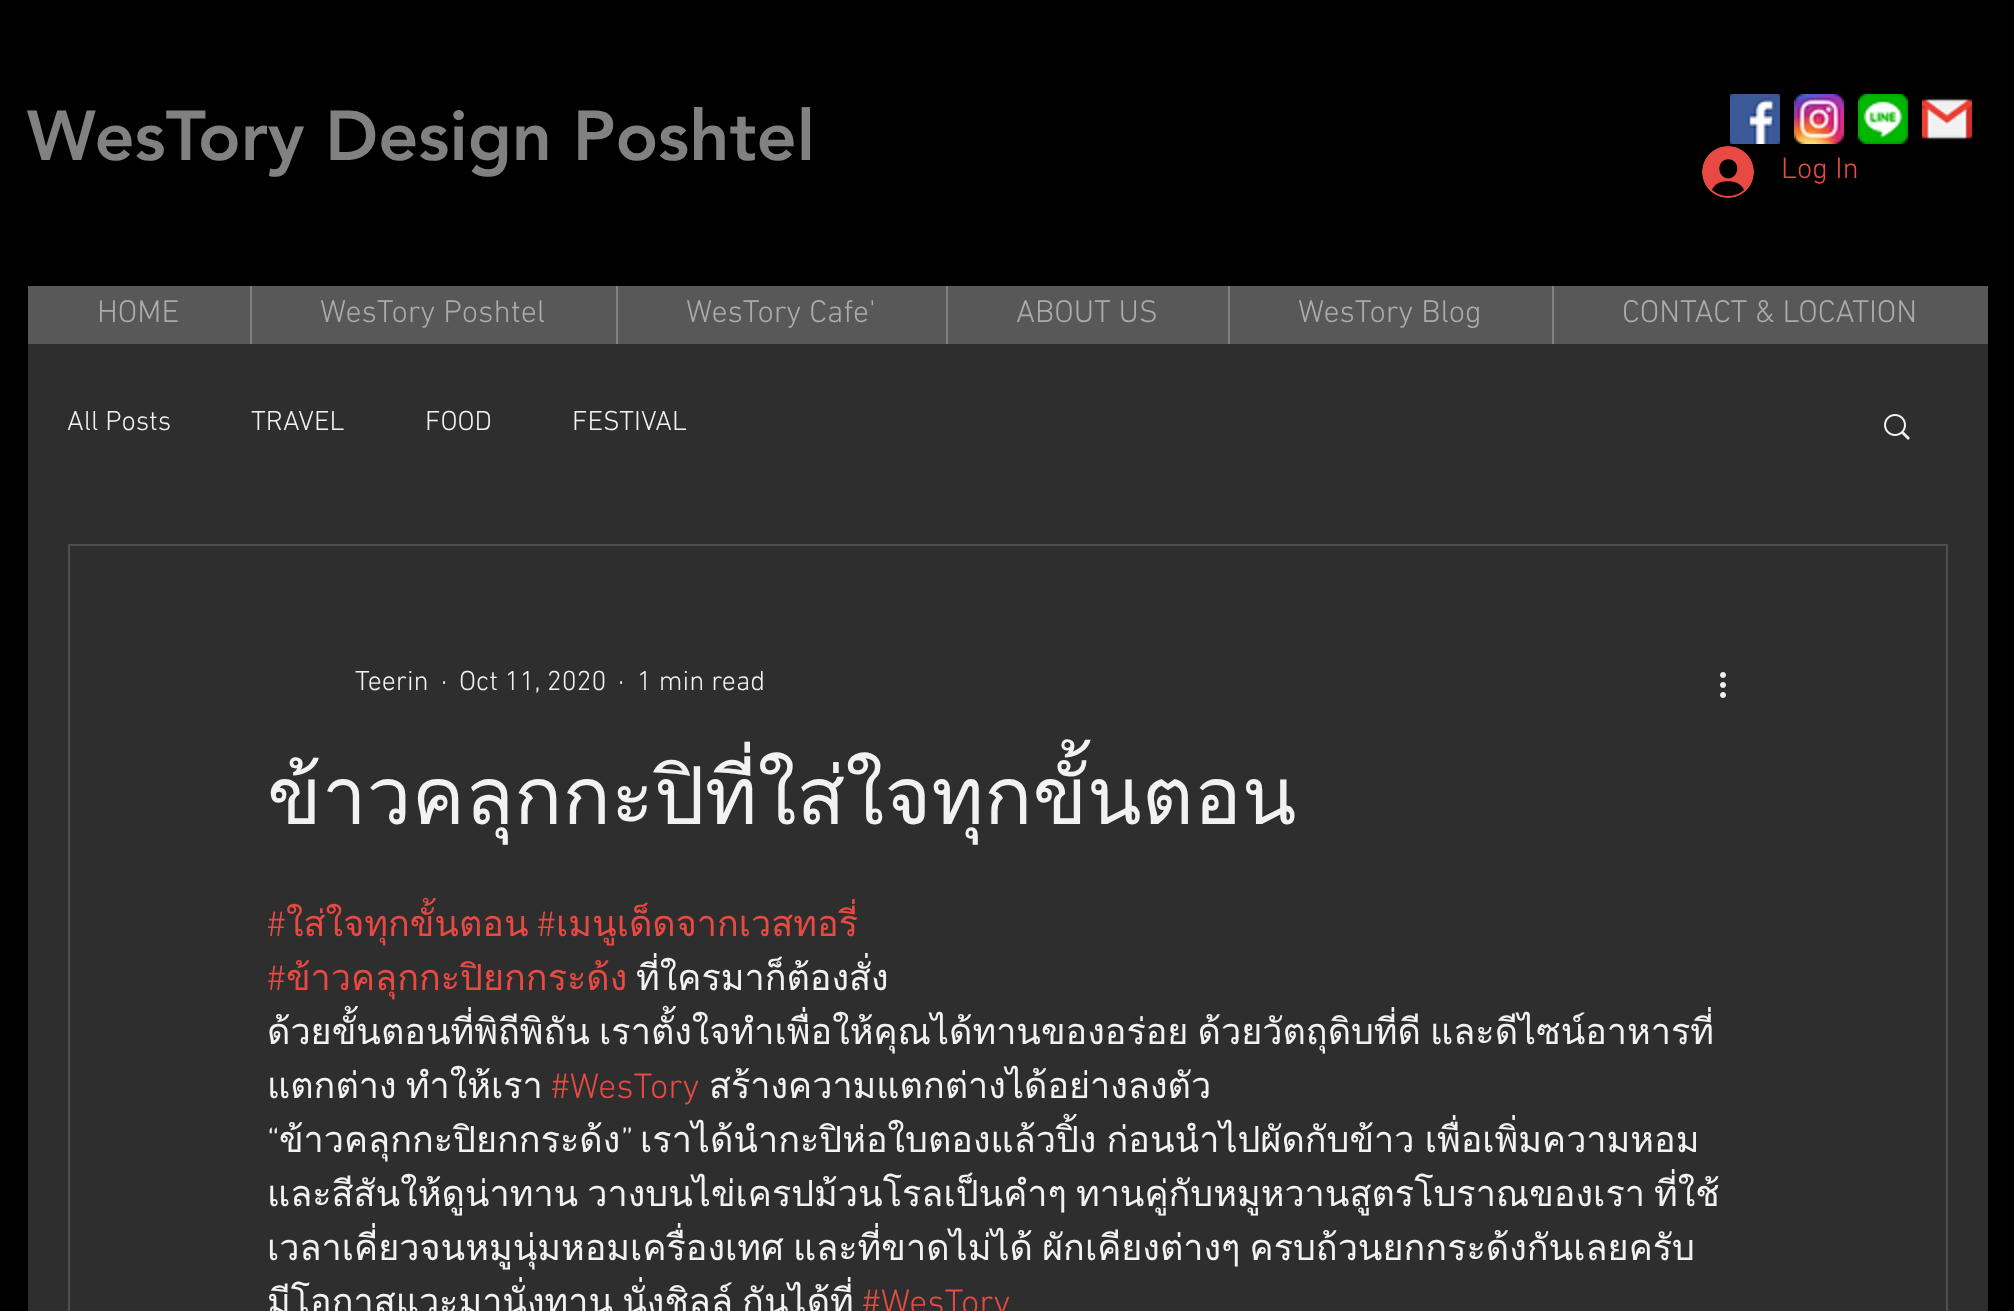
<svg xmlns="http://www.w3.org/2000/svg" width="2014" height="1311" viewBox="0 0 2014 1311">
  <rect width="100%" height="100%" fill="#000"/>
  <image x="1730" y="94" width="50" height="50" href="img/1.png"/>
  <image x="1794" y="94" width="50" height="50" href="img/2.png"/>
  <image x="1858" y="94" width="50" height="50" href="img/3.png"/>
  <image x="1922" y="98" width="50" height="42" href="img/4.png"/>
  <image x="1702" y="146" width="52" height="52" href="img/5.png"/>
  <path d="M28 286h1960v58H28z" fill="#595858"/>
  <path d="M250 286h2v58H250z" fill="#828181"/>
  <path d="M616 286h2v58H616z" fill="#828181"/>
  <path d="M946 286h2v58H946z" fill="#828181"/>
  <path d="M1228 286h2v58H1228z" fill="#828181"/>
  <path d="M1552 286h2v58H1552z" fill="#828181"/>
  <path d="M28 344h1960v967H28z" fill="#2f2e2e"/>
  <image x="1884" y="414" width="26" height="26" href="img/6.png"/>
  <path d="M69 545h1878v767H69z" fill="none" stroke="#4f4e4e" stroke-width="2"/>
  <image x="1720" y="672" width="6" height="26" href="img/7.png"/>
  <text x="27" y="160" font-family="'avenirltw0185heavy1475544'" font-size="70" font-weight="900" fill="#828181">WesTory Design Poshtel</text>
  <text x="1781" y="178" font-family="'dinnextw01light'" font-size="30" font-weight="300" fill="#e84a43">Log In</text>
  <g font-family="'dinnextw01light'" font-size="32" font-weight="300" fill="#acabab">
    <text x="97" y="322">HOME</text>
    <text x="320" y="322">WesTory Poshtel</text>
    <text x="686" y="322">WesTory Cafe'</text>
    <text x="1016" y="322">ABOUT US</text>
    <text x="1298" y="322">WesTory Blog</text>
    <text x="1622" y="322">CONTACT &amp; LOCATION</text>
  </g>
  <g font-family="'dinnextw01light'" font-size="28" font-weight="300" fill="#f2f2f2">
    <text x="67" y="430">All Posts</text>
    <text x="251" y="430">TRAVEL</text>
    <text x="425" y="430">FOOD</text>
    <text x="572" y="430">FESTIVAL</text>
    <text x="355" y="690">Teerin</text>
    <text x="441" y="690">·</text>
    <text x="459" y="690">Oct 11, 2020</text>
    <text x="618" y="690">·</text>
    <text x="637" y="690">1 min read</text>
  </g>
  <text x="267" y="824" font-family="Loma" font-size="80" fill="#f2f2f2">ข้าวคลุกกะปิที่ใส่ใจทุกขั้นตอน</text>
  <text x="267" y="936" font-family="'dinnextw01light'" font-size="36" font-weight="300" fill="#e84a43">#</text>
  <text x="286" y="936" font-family="Loma" font-size="36" fill="#e84a43">ใส่ใจทุกขั้นตอน</text>
  <text x="537" y="936" font-family="'dinnextw01light'" font-size="36" font-weight="300" fill="#e84a43">#</text>
  <text x="556" y="936" font-family="Loma" font-size="36" fill="#e84a43">เมนูเด็ดจากเวสทอรี่</text>
  <text x="267" y="990" font-family="'dinnextw01light'" font-size="36" font-weight="300" fill="#e84a43">#</text>
  <text x="286" y="990" font-family="Loma" font-size="36" fill="#e84a43">ข้าวคลุกกะปิยกกระด้ง</text>
  <g font-family="Loma" font-size="36" fill="#f2f2f2">
    <text x="636" y="990">ที่ใครมาก็ต้องสั่ง</text>
    <text x="267" y="1044" word-spacing="-3">ด้วยขั้นตอนที่พิถีพิถัน เราตั้งใจทำเพื่อให้คุณได้ทานของอร่อย ด้วยวัตถุดิบที่ดี และดีไซน์อาหารที่</text>
    <text x="267" y="1098" word-spacing="-3">แตกต่าง ทำให้เรา</text>
  </g>
  <text x="551" y="1098" font-family="'dinnextw01light'" font-size="36" font-weight="300" fill="#e84a43">#WesTory</text>
  <g font-family="Loma" font-size="36" fill="#f2f2f2">
    <text x="709" y="1098">สร้างความแตกต่างได้อย่างลงตัว</text>
    <text x="640" y="1152" word-spacing="-2">เราได้นำกะปิห่อใบตองแล้วปิ้ง ก่อนนำไปผัดกับข้าว เพื่อเพิ่มความหอม</text>
  </g>
  <text x="267" y="1152" font-family="'dinnextw01light'" font-size="36" font-weight="300" fill="#f2f2f2">“</text>
  <text x="279" y="1152" font-family="Loma" font-size="36" fill="#f2f2f2">ข้าวคลุกกะปิยกกระด้ง</text>
  <text x="621" y="1152" font-family="'dinnextw01light'" font-size="36" font-weight="300" fill="#f2f2f2">”</text>
  <g font-family="Loma" font-size="36" fill="#f2f2f2">
    <text x="267" y="1206" word-spacing="-3">และสีสันให้ดูน่าทาน วางบนไข่เครปม้วนโรลเป็นคำๆ ทานคู่กับหมูหวานสูตรโบราณของเรา ที่ใช้</text>
    <text x="267" y="1260" word-spacing="-3">เวลาเคี่ยวจนหมูนุ่มหอมเครื่องเทศ และที่ขาดไม่ได้ ผักเคียงต่างๆ ครบถ้วนยกกระด้งกันเลยครับ</text>
    <text x="267" y="1314" word-spacing="-3">มีโอกาสแวะมานั่งทาน นั่งชิลล์ กันได้ที่</text>
  </g>
  <text x="862" y="1314" font-family="'dinnextw01light'" font-size="36" font-weight="300" fill="#e84a43">#WesTory</text>
</svg>
